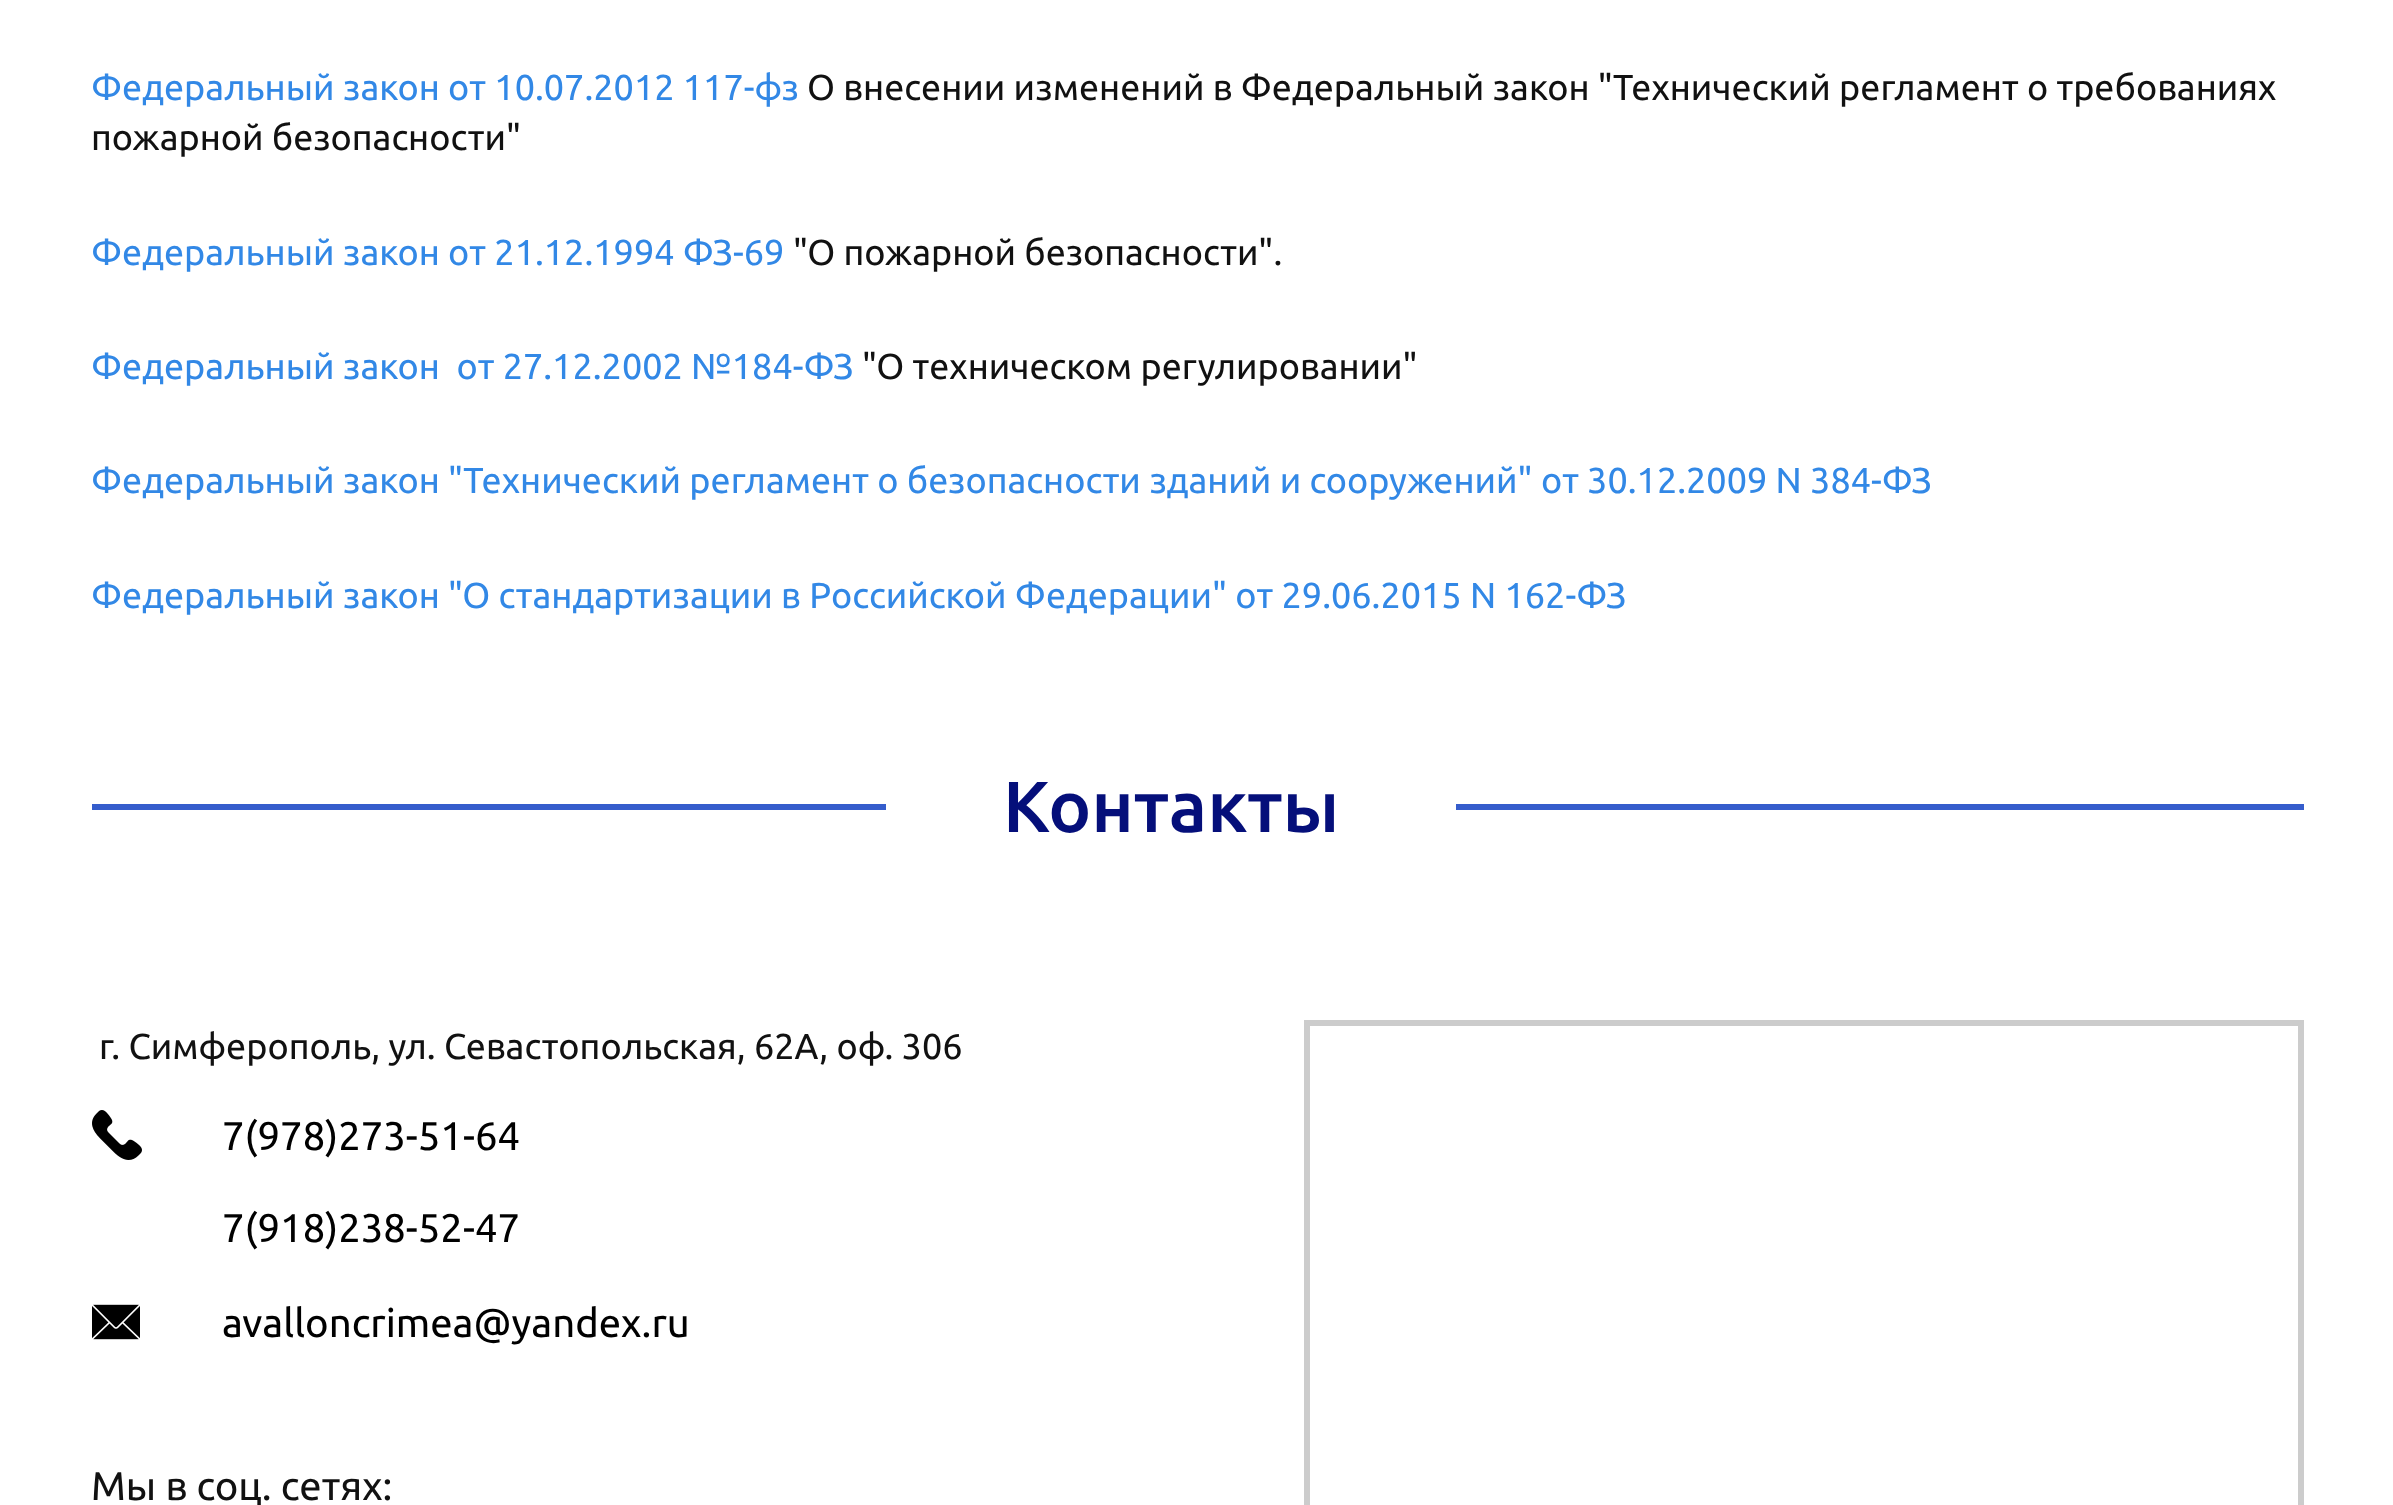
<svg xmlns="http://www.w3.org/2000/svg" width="2393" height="1505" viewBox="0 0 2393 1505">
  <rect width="100%" height="100%" fill="#fff"/>
  <path d="M92 804h794v6H92z" fill="#355dcc"/>
  <path d="M1456 804h848v6H1456z" fill="#355dcc"/>
  <image x="92" y="1110" width="50" height="50" href="img/1.png"/>
  <image x="92" y="1304" width="48" height="36" href="img/2.png"/>
  <path d="M1307 1023h994v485H1307z" fill="none" stroke="#ccc" stroke-width="6"/>
  <text x="91" y="100" font-family="Ubuntu" font-size="36" fill="#3288e6">Федеральный закон от 10.07.2012 117-фз</text>
  <g font-family="Ubuntu" font-size="36" fill="#111">
    <text x="807" y="100">О внесении изменений в Федеральный закон "Технический регламент о требованиях</text>
    <text x="91" y="150">пожарной безопасности"</text>
  </g>
  <text x="91" y="265" font-family="Ubuntu" font-size="36" fill="#3288e6">Федеральный закон от 21.12.1994 ФЗ-69</text>
  <text x="793" y="265" font-family="Ubuntu" font-size="36" fill="#111">"О пожарной безопасности".</text>
  <text x="91" y="379" font-family="Ubuntu" font-size="36" fill="#3288e6" xml:space="preserve">Федеральный закон  от 27.12.2002 №184-ФЗ</text>
  <text x="862" y="379" font-family="Ubuntu" font-size="36" fill="#111">"О техническом регулировании"</text>
  <g font-family="Ubuntu" font-size="36" fill="#3288e6">
    <text x="91" y="493">Федеральный закон "Технический регламент о безопасности зданий и сооружений" от 30.12.2009 N 384-ФЗ</text>
    <text x="91" y="608">Федеральный закон "О стандартизации в Российской Федерации" от 29.06.2015 N 162-ФЗ</text>
  </g>
  <text x="1003" y="832" font-family="Ubuntu" font-size="72" font-weight="500" fill="#050f7a">Контакты</text>
  <text x="99" y="1059" font-family="Ubuntu" font-size="36" fill="#111">г. Симферополь, ул. Севастопольская, 62А, оф. 306</text>
  <g font-family="Ubuntu" font-size="40" fill="#000">
    <text x="222" y="1150">7(978)273-51-64</text>
    <text x="222" y="1242">7(918)238-52-47</text>
    <text x="222" y="1337">avalloncrimea@yandex.ru</text>
  </g>
  <text x="91" y="1500" font-family="Ubuntu" font-size="40" fill="#111">Мы в соц. сетях:</text>
</svg>
